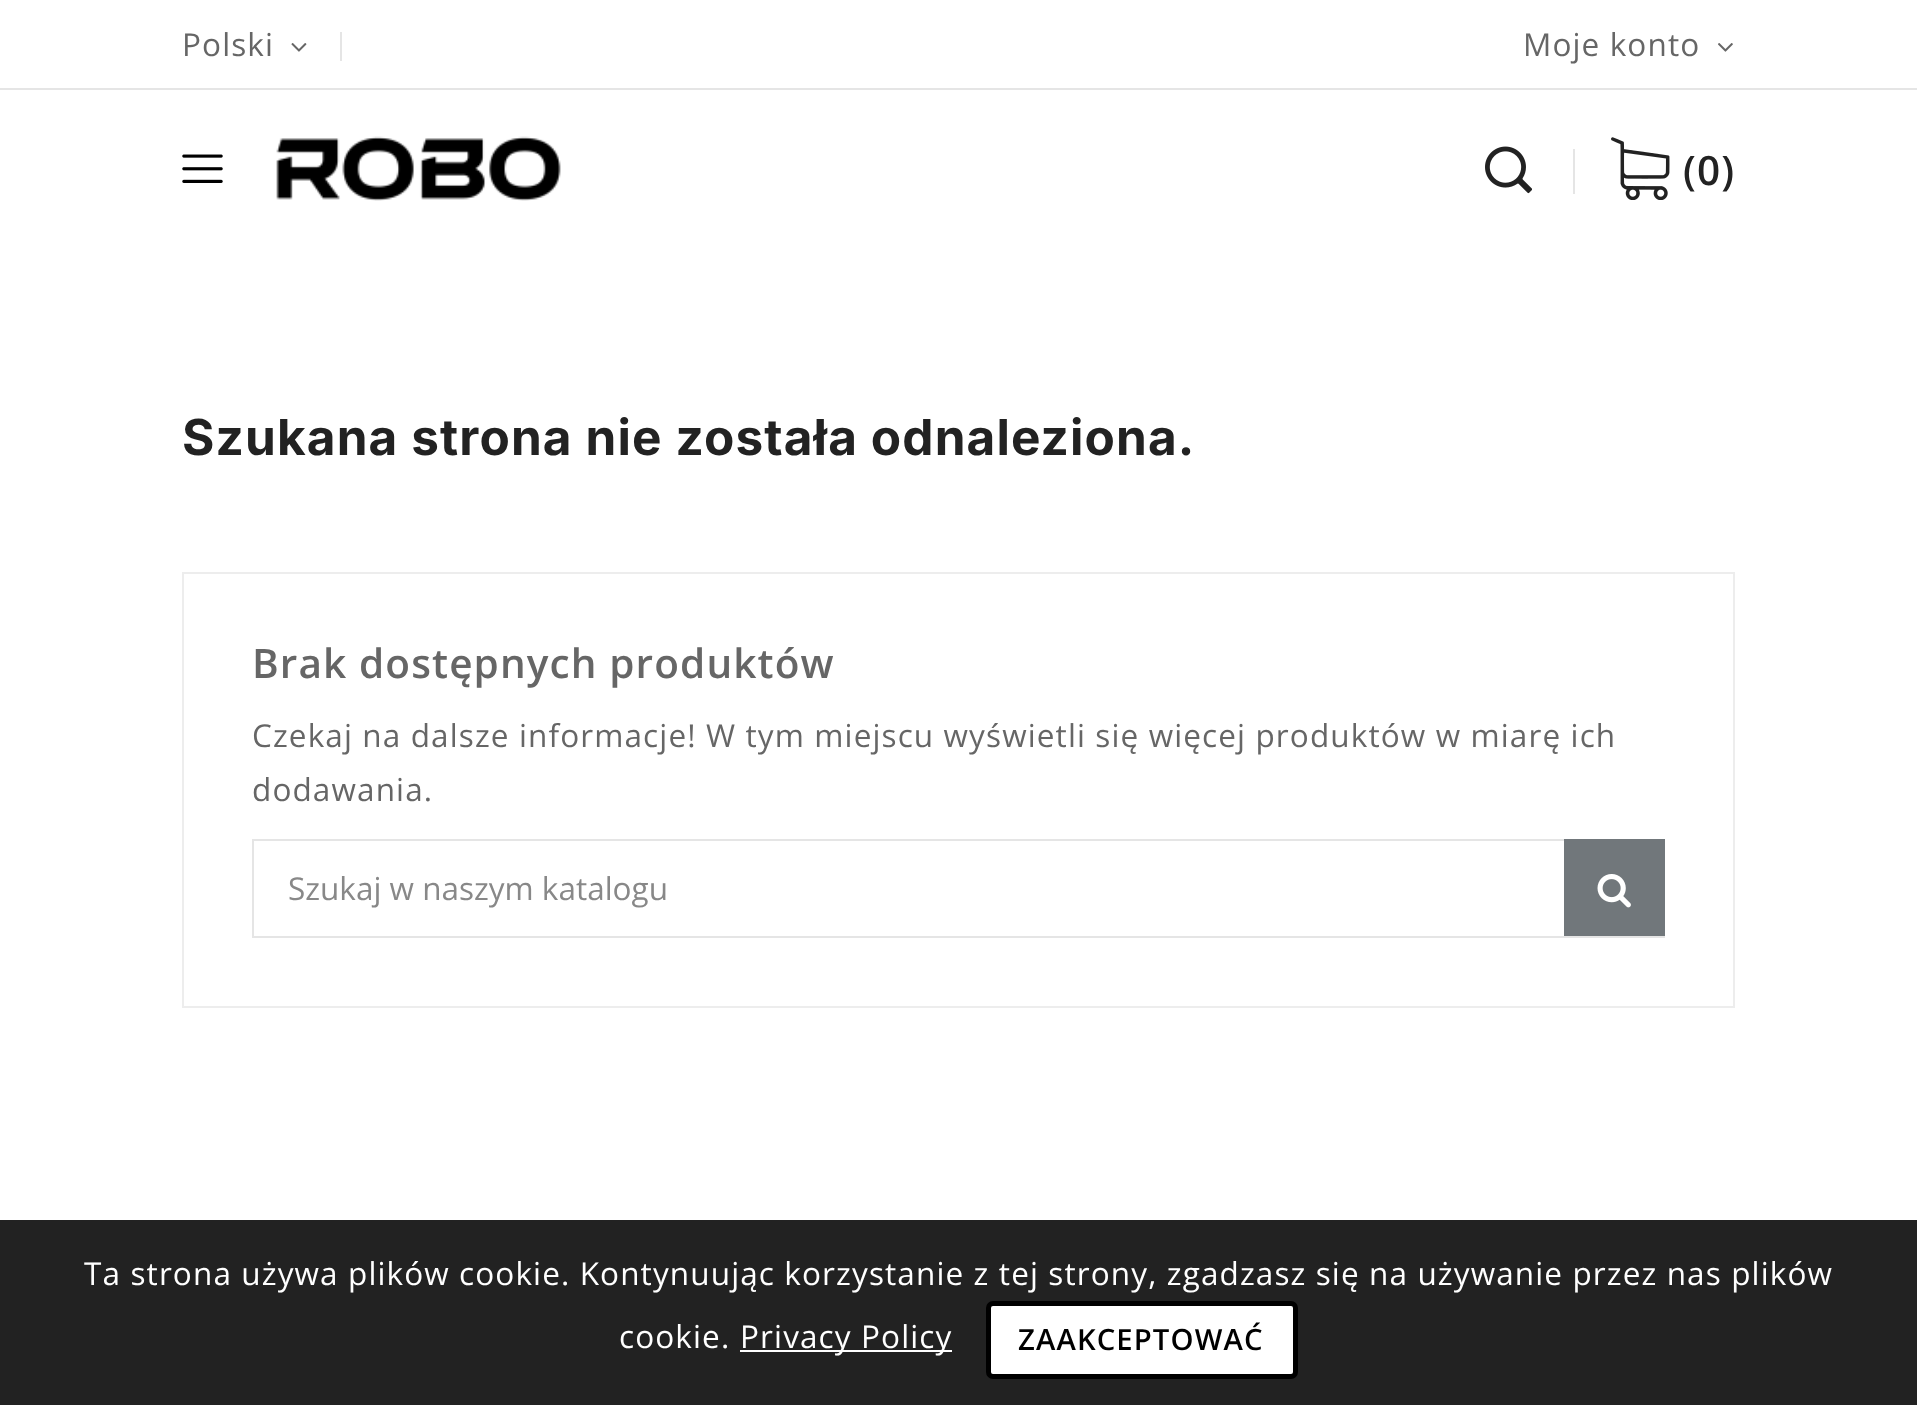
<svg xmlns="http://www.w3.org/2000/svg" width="1917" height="1405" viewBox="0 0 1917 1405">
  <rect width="100%" height="100%" fill="#fff"/>
  <path d="M0 88h1917v2H0z" fill="#e5e5e5"/>
  <image x="291" y="43" width="16" height="9" href="img/1.png"/>
  <path d="M340 32h2v29H340z" fill="#e5e5e5"/>
  <image x="1718" y="43" width="15" height="9" href="img/2.png"/>
  <image x="182" y="154" width="41" height="29" href="img/3.png"/>
  <image x="276" y="136" width="285" height="65" href="img/4.png"/>
  <image x="1485" y="146" width="47" height="48" href="img/5.png"/>
  <path d="M1573 149h2v45H1573z" fill="#e5e5e5"/>
  <image x="1611" y="137" width="59" height="63" href="img/6.png"/>
  <path d="M183 573h1551v434H183z" fill="none" stroke="#ededed" stroke-width="2"/>
  <path d="M253 840h1411v97H253z" fill="none" stroke="#e5e5e5" stroke-width="2"/>
  <path d="M1564 839h101v97H1564z" fill="#71777b"/>
  <image x="1597" y="874" width="34" height="34" href="img/7.png"/>
  <path d="M0 1220h1917v185H0z" fill="#222"/>
  <path d="M740 1350h212v2H740z" fill="#fff"/>
  <rect x="988.5" y="1303.5" width="307" height="73" rx="4.5" fill="#fff" stroke="#000" stroke-width="5"/>
  <g font-family="Open Sans" font-size="31.5" letter-spacing="1.12" fill="#666">
    <text x="182" y="56">Polski</text>
    <text x="1523" y="56">Moje konto</text>
  </g>
  <text x="1683" y="185" font-family="Open Sans" font-size="40.5" font-weight="600" letter-spacing="1.12" fill="#222">(0)</text>
  <text x="182" y="455" font-family="Inter" font-size="49.5" font-weight="bold" letter-spacing="1.12" fill="#222">Szukana strona nie została odnaleziona.</text>
  <text x="252" y="678" font-family="Open Sans" font-size="40.5" font-weight="600" letter-spacing="1.12" fill="#666">Brak dostępnych produktów</text>
  <g font-family="Open Sans" font-size="31.5" letter-spacing="1.12" fill="#666">
    <text x="252" y="747">Czekaj na dalsze informacje! W tym miejscu wyświetli się więcej produktów w miarę ich</text>
    <text x="252" y="801">dodawania.</text>
  </g>
  <text x="288" y="900" font-family="Open Sans" font-size="31.5" fill="#888">Szukaj w naszym katalogu</text>
  <g font-family="Open Sans" font-size="31.5" letter-spacing="1.12" fill="#fff">
    <text x="84" y="1285">Ta strona używa plików cookie. Kontynuując korzystanie z tej strony, zgadzasz się na używanie przez nas plików</text>
    <text x="619" y="1348">cookie.</text>
    <text x="740" y="1348">Privacy Policy</text>
  </g>
  <text x="1018" y="1350" font-family="Open Sans" font-size="29.25" font-weight="600" letter-spacing="1.12" fill="#000">ZAAKCEPTOWAĆ</text>
</svg>
